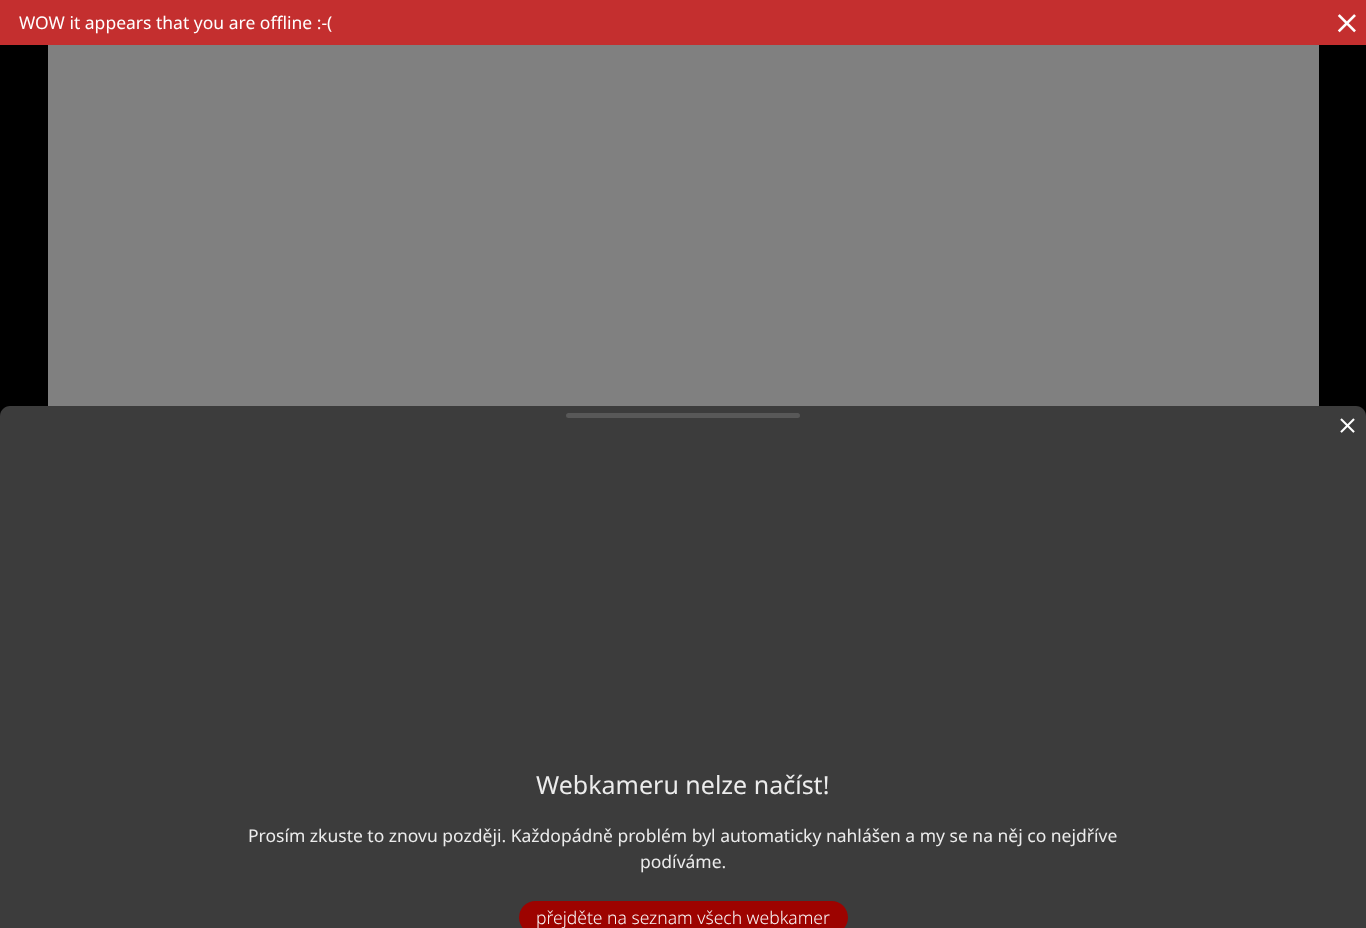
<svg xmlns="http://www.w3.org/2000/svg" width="1366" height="928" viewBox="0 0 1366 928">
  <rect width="100%" height="100%" fill="#000"/>
  <path d="M0 0h1366v45H0z" fill="#c42f2f"/>
  <image x="1337" y="14" width="19" height="19" href="img/1.png"/>
  <path d="M10 406H1356C1361.5 406 1366 410.5 1366 416V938H0V416C0 410.5 4.5 406 10 406Z" fill="#3c3c3c"/>
  <rect x="566" y="413" width="234" height="5" rx="2.5" fill="#585858"/>
  <image x="1340" y="418" width="15" height="15" href="img/2.png"/>
  <rect x="519" y="901" width="329" height="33" rx="16.5" fill="#9d0300"/>
  <path d="M48 45h1271v361H48z" fill="#808080"/>
  <text x="19" y="29" font-family="Noto Sans" font-size="17.5" fill="#fff">WOW it appears that you are offline :-(</text>
  <text x="536" y="794" font-family="Noto Sans" font-size="25" fill="#ececec">Webkameru nelze načíst!</text>
  <g font-family="Noto Sans" font-size="17.5" fill="#ececec">
    <text x="248" y="842">Prosím zkuste to znovu později. Každopádně problém byl automaticky nahlášen a my se na něj co nejdříve</text>
    <text x="640" y="868">podíváme.</text>
  </g>
  <text x="536" y="924" font-family="Noto Sans" font-size="17.5" font-weight="300" fill="#f8f8f8">přejděte na seznam všech webkamer</text>
</svg>
